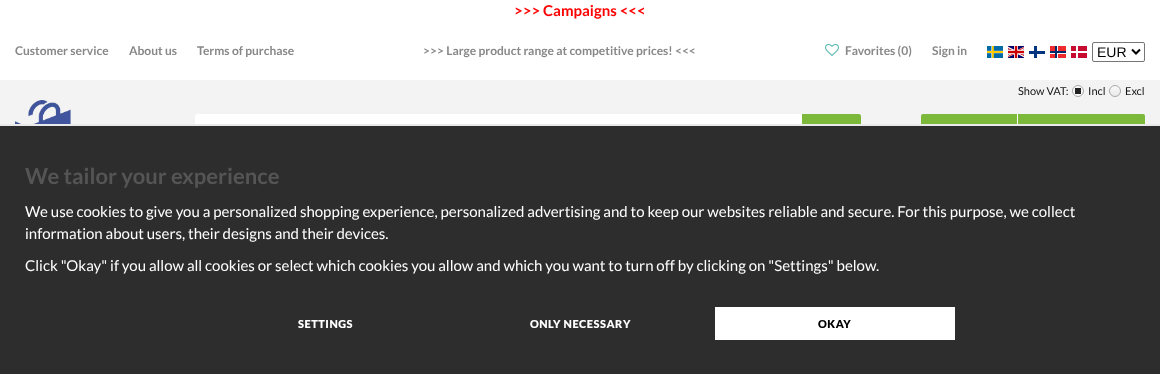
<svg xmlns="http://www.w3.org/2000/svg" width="1160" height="374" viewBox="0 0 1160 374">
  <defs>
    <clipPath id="clip1"><rect x="1109" y="85" width="12" height="12" rx="6"/></clipPath>
    <linearGradient id="g1" gradientUnits="userSpaceOnUse" x1="1115" y1="86" x2="1115" y2="96"><stop offset="0" stop-color="#f9f9f9"/><stop offset="1" stop-color="#e9e9e9"/></linearGradient>
  </defs>
  <rect width="100%" height="100%" fill="#fff"/>
  <image x="825" y="44" width="14" height="12" href="img/1.png"/>
  <image x="987" y="46" width="16" height="12" href="img/2.png"/>
  <image x="1008" y="46" width="16" height="12" href="img/3.png"/>
  <path d="M1029 51h16v3H1029z" fill="#003580"/>
  <path d="M1034 46h3v12H1034z" fill="#003580"/>
  <image x="1050" y="46" width="16" height="12" href="img/4.png"/>
  <path d="M1071 46h16v12H1071z" fill="#c60c30"/>
  <path d="M1076 46h2v12H1076z" fill="#fff"/>
  <rect x="1092.5" y="42.5" width="52" height="19" rx="1.5" fill="none" stroke="#767676"/>
  <path d="M1132 49.5L1136 53.5L1140 49.5" fill="none" stroke="#000" stroke-width="2"/>
  <path d="M1071 51h16v2H1071z" fill="#fff"/>
  <path d="M0 80h1160v44H0z" fill="#f4f3f3"/>
  <circle cx="1078" cy="91" r="6" fill="#f9f9f9"/>
  <path d="M1075 88h6v6H1075z" fill="#222"/>
  <circle cx="1078" cy="91" r="5.5" fill="none" stroke="#a9a9a9"/>
  <g clip-path="url(#clip1)">
    <path d="M1109 86h12v10H1109z" fill="url(#g1)"/>
  </g>
  <circle cx="1115" cy="91" r="5.5" fill="none" stroke="#a9a9a9"/>
  <image x="15" y="100" width="56" height="24" href="img/5.png"/>
  <rect x="195" y="114" width="666" height="50" rx="2" fill="#fff"/>
  <path d="M802 114H859C860 114 861 115 861 116V162C861 163 860 164 859 164H802Z" fill="#7cb93b"/>
  <rect x="921" y="114" width="224" height="50" rx="2" fill="#7cb93b"/>
  <path d="M1017 114h1v10H1017z" fill="#fff"/>
  <path d="M0 126h1160v248H0z" fill="#2d2d2d"/>
  <path d="M0 124h1160v2H0z" fill="#e9e9e9"/>
  <path d="M715 307h240v33H715z" fill="#fff"/>
  <text x="514" y="16" font-family="Lato" font-size="15" font-weight="bold" fill="#f00">&gt;&gt;&gt; Campaigns &lt;&lt;&lt;</text>
  <g font-family="Lato" font-size="12" font-weight="bold" fill="#888">
    <text x="15" y="55">Customer service</text>
    <text x="129" y="55">About us</text>
    <text x="197" y="55">Terms of purchase</text>
    <text x="423" y="55">&gt;&gt;&gt; Large product range at competitive prices! &lt;&lt;&lt;</text>
    <text x="845" y="55">Favorites (0)</text>
    <text x="932" y="55">Sign in</text>
  </g>
  <text x="1097" y="57" font-family="Liberation Sans" font-size="14" fill="#000">EUR</text>
  <g font-family="Lato" font-size="11" fill="#151515">
    <text x="1018" y="95">Show VAT:</text>
    <text x="1088" y="95">Incl</text>
    <text x="1125" y="95">Excl</text>
  </g>
  <text x="25" y="184" font-family="Lato" font-size="22" font-weight="bold" fill="#555">We tailor your experience</text>
  <g font-family="Lato" font-size="15" fill="#fff">
    <text x="25" y="217">We use cookies to give you a personalized shopping experience, personalized advertising and to keep our websites reliable and secure. For this purpose, we collect</text>
    <text x="25" y="239">information about users, their designs and their devices.</text>
    <text x="25" y="271">Click "Okay" if you allow all cookies or select which cookies you allow and which you want to turn off by clicking on "Settings" below.</text>
  </g>
  <g font-family="Lato" font-size="11" font-weight="900" letter-spacing="0.5" fill="#fff">
    <text x="298" y="328">SETTINGS</text>
    <text x="530" y="328">ONLY NECESSARY</text>
  </g>
  <text x="818" y="328" font-family="Lato" font-size="11" font-weight="900" letter-spacing="0.5" fill="#000">OKAY</text>
</svg>
